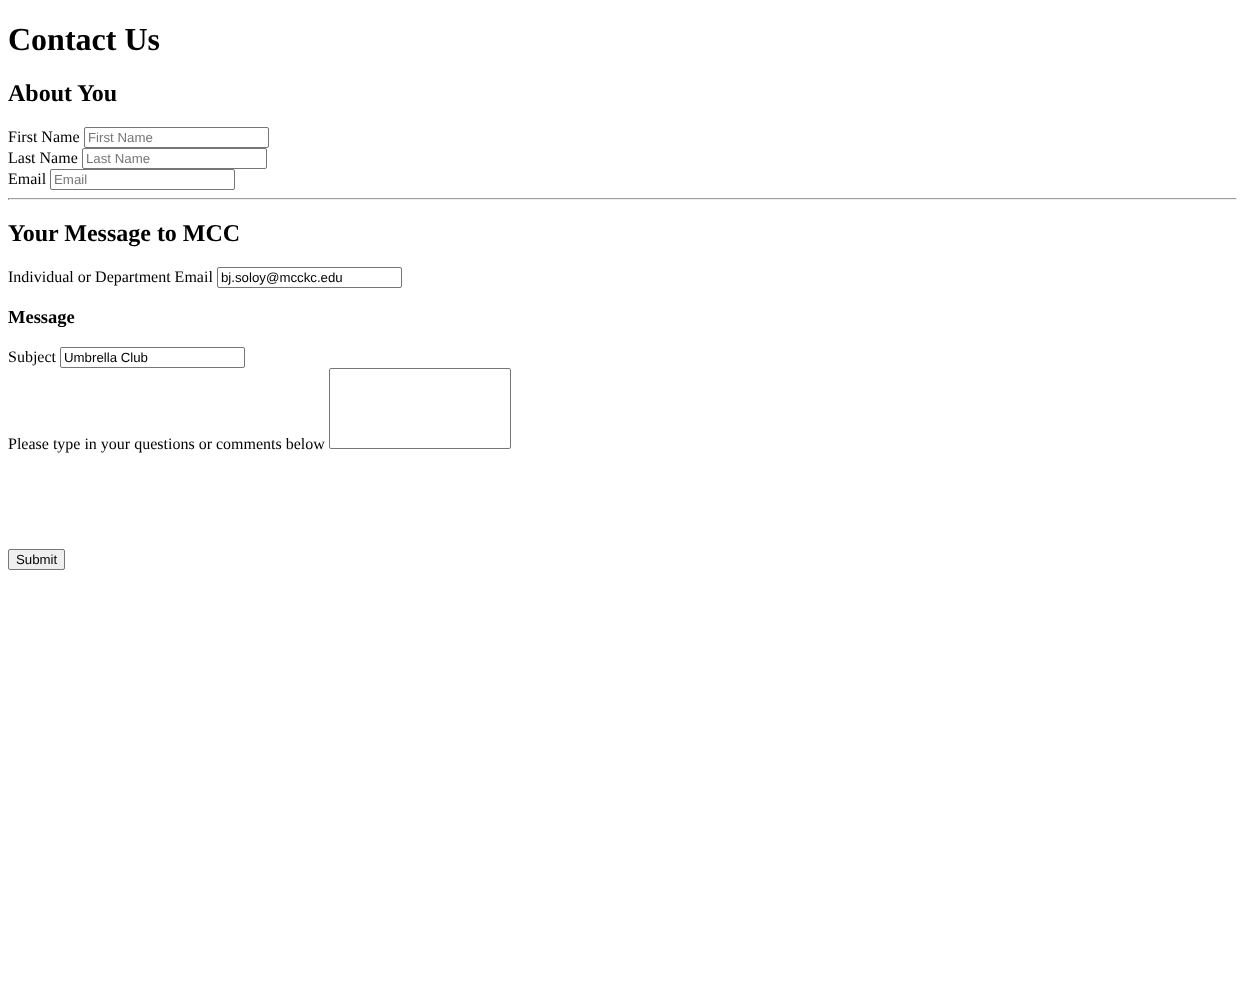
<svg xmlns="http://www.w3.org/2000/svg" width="1245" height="989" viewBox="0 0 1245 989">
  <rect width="100%" height="100%" fill="#fff"/>
  <rect x="84.5" y="127.5" width="184" height="20" rx="1.5" fill="none" stroke="#767676"/>
  <rect x="82.5" y="148.5" width="184" height="20" rx="1.5" fill="none" stroke="#767676"/>
  <rect x="50.5" y="169.5" width="184" height="20" rx="1.5" fill="none" stroke="#767676"/>
  <path d="M8 198h1229v1H8z" fill="#9f9f9f"/>
  <path d="M1236 198h1v2H1236z" fill="#eee"/>
  <path d="M8 199h1229v1H8z" fill="#eee"/>
  <path d="M8 198h1v2H8z" fill="#9f9f9f"/>
  <rect x="217.5" y="267.5" width="184" height="20" rx="1.5" fill="none" stroke="#767676"/>
  <rect x="60.5" y="347.5" width="184" height="20" rx="1.5" fill="none" stroke="#767676"/>
  <rect x="329.5" y="368.5" width="181" height="80" rx="1.5" fill="none" stroke="#767676"/>
  <rect x="8.5" y="549.5" width="56" height="20" rx="1.5" fill="#efefef" stroke="#767676"/>
  <text x="8" y="50" font-family="Liberation Serif" font-size="32" font-weight="bold" fill="#000">Contact Us</text>
  <text x="8" y="101" font-family="Liberation Serif" font-size="24" font-weight="bold" fill="#000">About You</text>
  <text x="8" y="142" font-family="Liberation Serif" font-size="16" fill="#000">First Name</text>
  <text x="88" y="142" font-family="Liberation Sans" font-size="13.25" fill="#757575">First Name</text>
  <text x="8" y="163" font-family="Liberation Serif" font-size="16" fill="#000">Last Name</text>
  <text x="86" y="163" font-family="Liberation Sans" font-size="13.25" fill="#757575">Last Name</text>
  <text x="8" y="184" font-family="Liberation Serif" font-size="16" fill="#000">Email</text>
  <text x="54" y="184" font-family="Liberation Sans" font-size="13.25" fill="#757575">Email</text>
  <text x="8" y="241" font-family="Liberation Serif" font-size="24" font-weight="bold" fill="#000">Your Message to MCC</text>
  <text x="8" y="282" font-family="Liberation Serif" font-size="16" fill="#000">Individual or Department Email</text>
  <text x="221" y="282" font-family="Liberation Sans" font-size="13.25" fill="#000">bj.soloy@mcckc.edu</text>
  <text x="8" y="323" font-family="Liberation Serif" font-size="18.5" font-weight="bold" fill="#000">Message</text>
  <text x="8" y="362" font-family="Liberation Serif" font-size="16" fill="#000">Subject</text>
  <text x="64" y="362" font-family="Liberation Sans" font-size="13.25" fill="#000">Umbrella Club</text>
  <text x="8" y="449" font-family="Liberation Serif" font-size="16" fill="#000">Please type in your questions or comments below</text>
  <text x="16" y="564" font-family="Liberation Sans" font-size="13.25" fill="#000">Submit</text>
</svg>
